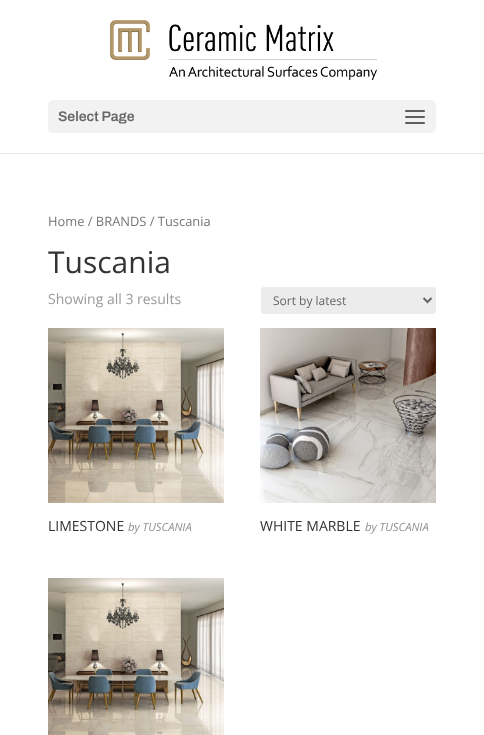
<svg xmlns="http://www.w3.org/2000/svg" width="484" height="735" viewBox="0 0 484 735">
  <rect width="100%" height="100%" fill="#fff"/>
  <path d="M0 153h484v1H0z" fill="#e6e6e6"/>
  <image x="110" y="20" width="267" height="60" href="img/1.png"/>
  <rect x="48" y="100" width="388" height="33" rx="5" fill="#f2f2f2"/>
  <image x="405" y="110" width="20" height="14" href="img/2.png"/>
  <rect x="261" y="287" width="175" height="27" rx="3" fill="#ececec"/>
  <path d="M423.5 298L427.5 302L431.5 298" fill="none" stroke="#666" stroke-width="2"/>
  <image x="48" y="328" width="176" height="175" href="img/3.png"/>
  <image x="260" y="328" width="176" height="175" href="img/4.png"/>
  <image x="48" y="578" width="176" height="157" href="img/5.png"/>
  <text x="58" y="121" font-family="Archivo" font-size="14" font-weight="600" fill="#666">Select Page</text>
  <text x="48" y="226" font-family="Open Sans" font-size="12.9" fill="#767676">Home / BRANDS / Tuscania</text>
  <text x="48" y="273" font-family="Open Sans" font-size="30" fill="#333">Tuscania</text>
  <text x="48" y="304" font-family="Open Sans" font-size="14" fill="#999">Showing all 3 results</text>
  <text x="273" y="305" font-family="Open Sans" font-size="12" fill="#666">Sort by latest</text>
  <text x="48" y="531" font-family="Open Sans" font-size="14" fill="#333">LIMESTONE</text>
  <text x="128" y="531" font-family="Open Sans" font-size="11.25" font-style="italic" fill="#909090">by TUSCANIA</text>
  <text x="260" y="531" font-family="Open Sans" font-size="14" fill="#333">WHITE MARBLE</text>
  <text x="365" y="531" font-family="Open Sans" font-size="11.25" font-style="italic" fill="#909090">by TUSCANIA</text>
</svg>
